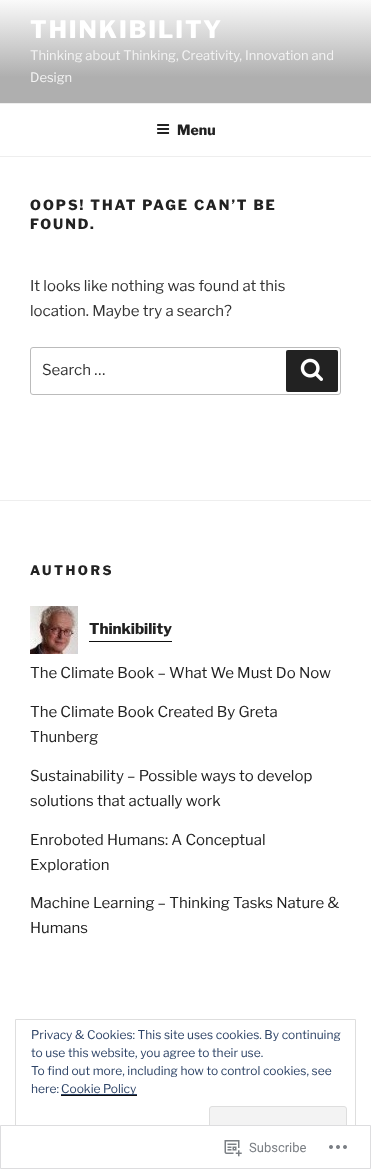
<svg xmlns="http://www.w3.org/2000/svg" width="371" height="1169" viewBox="0 0 371 1169">
  <defs>
    <linearGradient id="g1" gradientUnits="userSpaceOnUse" x1="186" y1="0" x2="186" y2="103"><stop offset="0" stop-color="#fafafa"/><stop offset="0.75" stop-color="#afafaf"/><stop offset="1" stop-color="#afafaf"/></linearGradient>
  </defs>
  <rect width="100%" height="100%" fill="#fff"/>
  <path d="M0 0h371v103H0z" fill="url(#g1)"/>
  <path d="M0 103h371v1H0z" fill="#eee"/>
  <path d="M0 156h371v1H0z" fill="#eee"/>
  <image x="157" y="124" width="13" height="10" href="img/1.png"/>
  <rect x="30.5" y="347.5" width="310" height="47" rx="2.5" fill="none" stroke="#bbb"/>
  <rect x="286" y="350" width="52" height="42" rx="2" fill="#222"/>
  <image x="300" y="358" width="23" height="23" href="img/2.png"/>
  <path d="M0 500h371v1H0z" fill="#eee"/>
  <image x="30" y="606" width="48" height="48" href="img/3.png"/>
  <path d="M89 641h83v1H89z" fill="#0f0f0f"/>
  <path d="M15.5 1019.5h340v134H15.5z" fill="none" stroke="#dedede"/>
  <path d="M61 1095h76v1H61z" fill="#0f0f0f"/>
  <path d="M61 1094h76v1H61z" fill="#2e4467"/>
  <rect x="209.5" y="1106.5" width="137" height="38" rx="2.5" fill="#f3f3f3" stroke="#dedede"/>
  <path d="M15 1125h341v29H15z" fill="#fffffffa"/>
  <path d="M0.5 1125.5h370v43H0.5z" fill="none" stroke="#dcdcdefa"/>
  <image x="224" y="1140" width="18" height="17" href="img/4.png"/>
  <image x="329" y="1145" width="18" height="4" href="img/5.png"/>
  <text x="30" y="38" font-family="Libre Franklin" font-size="24" font-weight="100" letter-spacing="2" fill="#fff">THINKIBILITY</text>
  <g font-family="'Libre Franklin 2'" font-size="13" font-weight="100" fill="#f3f3f3">
    <text x="30" y="60">Thinking about Thinking, Creativity, Innovation and</text>
    <text x="30" y="82">Design</text>
  </g>
  <text x="177" y="135" font-family="Libre Franklin" font-size="14" font-weight="100" fill="#222">Menu</text>
  <g font-family="Libre Franklin" font-size="14" font-weight="100" letter-spacing="2" fill="#222">
    <text x="30" y="210">OOPS! THAT PAGE CAN’T BE</text>
    <text x="30" y="229">FOUND.</text>
  </g>
  <g font-family="'Libre Franklin 2'" font-size="15" font-weight="100" fill="#333">
    <text x="30" y="291">It looks like nothing was found at this</text>
    <text x="30" y="316">location. Maybe try a search?</text>
    <text x="42" y="375">Search …</text>
  </g>
  <text x="30" y="575" font-family="Libre Franklin" font-size="13" font-weight="100" letter-spacing="2.5" fill="#222">AUTHORS</text>
  <text x="89" y="634" font-family="Libre Franklin" font-size="15" font-weight="100" fill="#222">Thinkibility</text>
  <g font-family="'Libre Franklin 2'" font-size="15" font-weight="100" fill="#222">
    <text x="30" y="678">The Climate Book – What We Must Do Now</text>
    <text x="30" y="717">The Climate Book Created By Greta</text>
    <text x="30" y="742">Thunberg</text>
    <text x="30" y="781">Sustainability – Possible ways to develop</text>
    <text x="30" y="806">solutions that actually work</text>
    <text x="30" y="845">Enroboted Humans: A Conceptual</text>
    <text x="30" y="870">Exploration</text>
    <text x="30" y="908">Machine Learning – Thinking Tasks Nature &amp;</text>
    <text x="30" y="933">Humans</text>
  </g>
  <g font-family="'Libre Franklin 2'" font-size="12" font-weight="100" fill="#2e4467">
    <text x="31" y="1039">Privacy &amp; Cookies: This site uses cookies. By continuing</text>
    <text x="31" y="1057">to use this website, you agree to their use.</text>
    <text x="31" y="1075">To find out more, including how to control cookies, see</text>
    <text x="31" y="1093">here:</text>
    <text x="61" y="1093">Cookie Policy</text>
  </g>
  <text x="249" y="1152" font-family="Roboto" font-size="13" fill="#7b7f84">Subscribe</text>
</svg>
